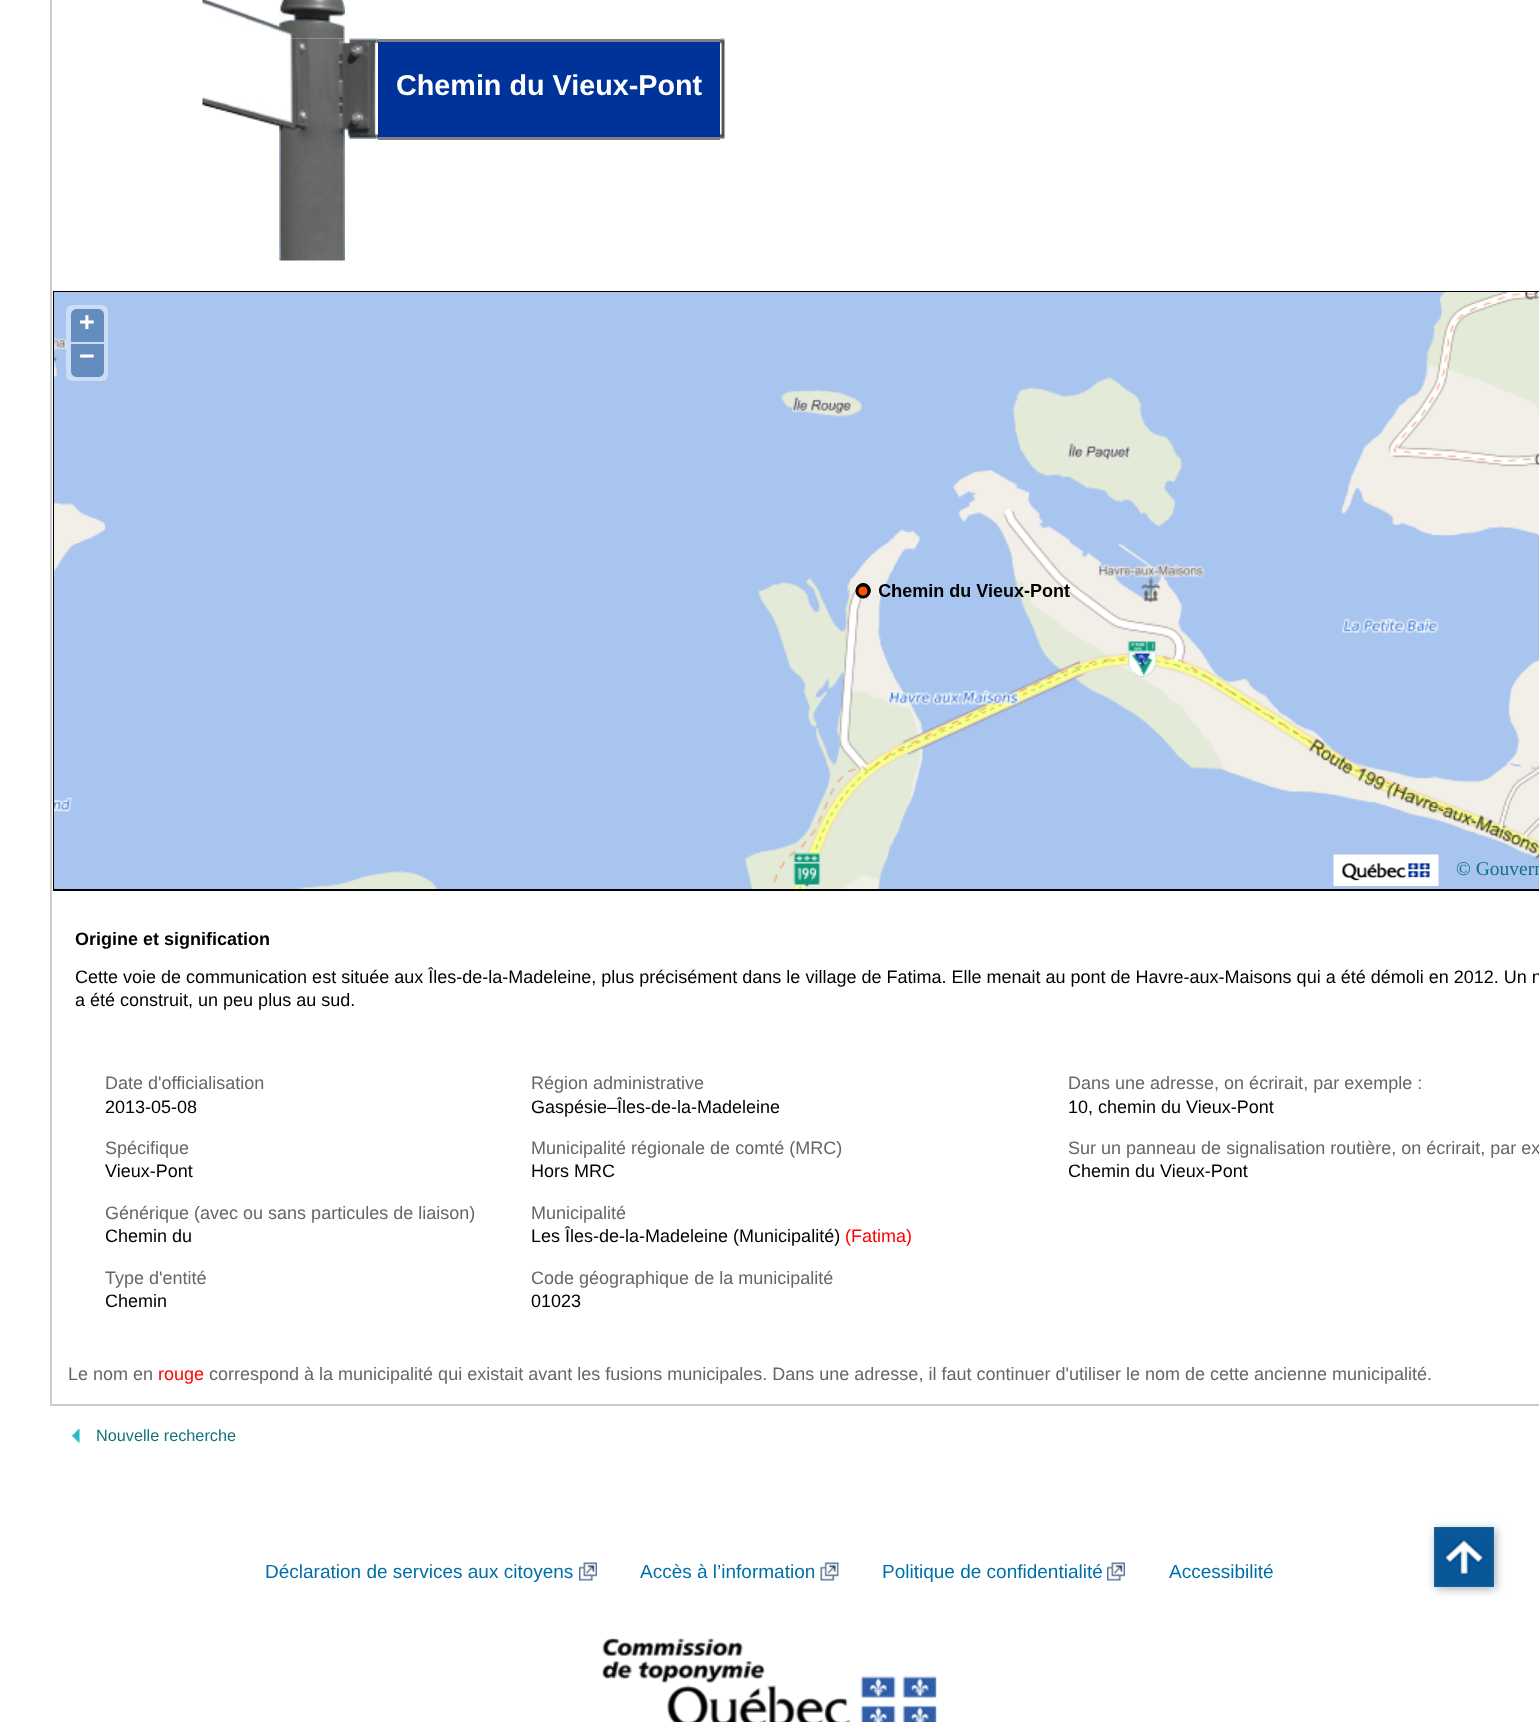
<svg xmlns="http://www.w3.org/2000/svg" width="1539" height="1722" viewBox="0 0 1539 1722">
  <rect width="100%" height="100%" fill="#fff"/>
  <path d="M50 1404h1489v2H50z" fill="#ccc"/>
  <path d="M50 0h2v1406H50z" fill="#ccc"/>
  <image x="202" y="0" width="77" height="32" href="img/1.png"/>
  <image x="279" y="0" width="66" height="39" href="img/2.png"/>
  <image x="279" y="38" width="66" height="101" href="img/3.png"/>
  <image x="345" y="38" width="32" height="101" href="img/4.png"/>
  <image x="376" y="38" width="2" height="101" href="img/5.png"/>
  <path d="M378 42h342v95H378z" fill="#039"/>
  <path d="M378 39h342v3H378z" fill="#808080"/>
  <path d="M378 137h342v3H378z" fill="#808080"/>
  <image x="720" y="38" width="5" height="101" href="img/6.png"/>
  <image x="202" y="97" width="77" height="30" href="img/7.png"/>
  <image x="279" y="139" width="66" height="122" href="img/8.png"/>
  <path d="M54 292h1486v598H54z" fill="none" stroke="#000" stroke-width="2"/>
  <image x="54" y="292" width="71" height="251" href="img/9.png"/>
  <path d="M125 292h384v251H125z" fill="#a8c5f0"/>
  <image x="509" y="292" width="384" height="251" href="img/10.png"/>
  <image x="893" y="292" width="384" height="251" href="img/11.png"/>
  <image x="1277" y="292" width="262" height="251" href="img/12.png"/>
  <image x="54" y="543" width="71" height="346" href="img/13.png"/>
  <image x="125" y="543" width="384" height="346" href="img/14.png"/>
  <image x="509" y="543" width="384" height="346" href="img/15.png"/>
  <image x="892" y="543" width="385" height="346" href="img/16.png"/>
  <image x="1277" y="543" width="262" height="346" href="img/17.png"/>
  <circle cx="863" cy="591" r="6" fill="#f50" stroke="#000" stroke-width="3"/>
  <rect x="66" y="305" width="42" height="76" rx="6" fill="#ffffff66"/>
  <path d="M77 309H98C101.5 309 104 311.5 104 315V342H71V315C71 311.5 73.5 309 77 309Z" fill="#658cbf"/>
  <path d="M71 344H104V371C104 374.5 101.5 377 98 377H77C73.5 377 71 374.5 71 371Z" fill="#658cbf"/>
  <image x="1333" y="854" width="106" height="32" href="img/18.png"/>
  <image x="72" y="1429" width="8" height="14" href="img/19.png"/>
  <image x="579" y="1562" width="18" height="19" href="img/20.png"/>
  <image x="820" y="1562" width="19" height="19" href="img/21.png"/>
  <image x="1107" y="1562" width="18" height="19" href="img/20.png"/>
  <image x="602" y="1638" width="335" height="84" href="img/22.png"/>
  <path d="M1436 1529h60v60H1436z" fill="#22365466" filter="blur(5px)"/>
  <image x="1434" y="1527" width="60" height="60" href="img/23.png"/>
  <text x="396" y="95" font-family="Liberation Sans" font-size="28.75" font-weight="bold" fill="#fff">Chemin du Vieux-Pont</text>
  <g font-family="Liberation Sans" font-size="27" font-weight="bold" fill="#fff">
    <text x="79" y="331">+</text>
    <text x="79" y="365">−</text>
  </g>
  <text x="1456" y="875" font-family="Liberation Serif" font-size="19.5" fill="#13717a">© Gouvern</text>
  <text x="75" y="945" font-family="Liberation Sans" font-size="18" font-weight="bold" fill="#000">Origine et signification</text>
  <g font-family="Liberation Sans" font-size="18" fill="#000">
    <text x="75" y="983">Cette voie de communication est située aux Îles-de-la-Madeleine, plus précisément dans le village de Fatima. Elle menait au pont de Havre-aux-Maisons qui a été démoli en 2012. Un n</text>
    <text x="75" y="1006">a été construit, un peu plus au sud.</text>
  </g>
  <text x="105" y="1089" font-family="Liberation Sans" font-size="18" fill="#666">Date d'officialisation</text>
  <text x="105" y="1113" font-family="Liberation Sans" font-size="18" fill="#000">2013-05-08</text>
  <text x="105" y="1154" font-family="Liberation Sans" font-size="18" fill="#666">Spécifique</text>
  <text x="105" y="1177" font-family="Liberation Sans" font-size="18" fill="#000">Vieux-Pont</text>
  <text x="105" y="1219" font-family="Liberation Sans" font-size="18" fill="#666">Générique (avec ou sans particules de liaison)</text>
  <text x="105" y="1242" font-family="Liberation Sans" font-size="18" fill="#000">Chemin du</text>
  <text x="105" y="1284" font-family="Liberation Sans" font-size="18" fill="#666">Type d'entité</text>
  <text x="105" y="1307" font-family="Liberation Sans" font-size="18" fill="#000">Chemin</text>
  <text x="531" y="1089" font-family="Liberation Sans" font-size="18" fill="#666">Région administrative</text>
  <text x="531" y="1113" font-family="Liberation Sans" font-size="18" fill="#000">Gaspésie–Îles-de-la-Madeleine</text>
  <text x="531" y="1154" font-family="Liberation Sans" font-size="18" fill="#666">Municipalité régionale de comté (MRC)</text>
  <text x="531" y="1177" font-family="Liberation Sans" font-size="18" fill="#000">Hors MRC</text>
  <text x="531" y="1219" font-family="Liberation Sans" font-size="18" fill="#666">Municipalité</text>
  <text x="531" y="1242" font-family="Liberation Sans" font-size="18" fill="#000">Les Îles-de-la-Madeleine (Municipalité)</text>
  <text x="845" y="1242" font-family="Liberation Sans" font-size="18" fill="#f00">(Fatima)</text>
  <text x="531" y="1284" font-family="Liberation Sans" font-size="18" fill="#666">Code géographique de la municipalité</text>
  <text x="531" y="1307" font-family="Liberation Sans" font-size="18" fill="#000">01023</text>
  <text x="1068" y="1089" font-family="Liberation Sans" font-size="18" fill="#666">Dans une adresse, on écrirait, par exemple :</text>
  <text x="1068" y="1113" font-family="Liberation Sans" font-size="18" fill="#000">10, chemin du Vieux-Pont</text>
  <text x="1068" y="1154" font-family="Liberation Sans" font-size="18" fill="#666">Sur un panneau de signalisation routière, on écrirait, par ex</text>
  <text x="1068" y="1177" font-family="Liberation Sans" font-size="18" fill="#000">Chemin du Vieux-Pont</text>
  <text x="68" y="1380" font-family="Liberation Sans" font-size="18" fill="#666">Le nom en</text>
  <text x="158" y="1380" font-family="Liberation Sans" font-size="18" fill="#f00">rouge</text>
  <text x="209" y="1380" font-family="Liberation Sans" font-size="18" fill="#666">correspond à la municipalité qui existait avant les fusions municipales. Dans une adresse, il faut continuer d'utiliser le nom de cette ancienne municipalité.</text>
  <text x="96" y="1441" font-family="Liberation Sans" font-size="16.25" fill="#13717a">Nouvelle recherche</text>
  <g font-family="Liberation Sans" font-size="19" fill="#006fa9">
    <text x="265" y="1578">Déclaration de services aux citoyens</text>
    <text x="640" y="1578">Accès à l’information</text>
    <text x="882" y="1578">Politique de confidentialité</text>
    <text x="1169" y="1578">Accessibilité</text>
  </g>
</svg>
